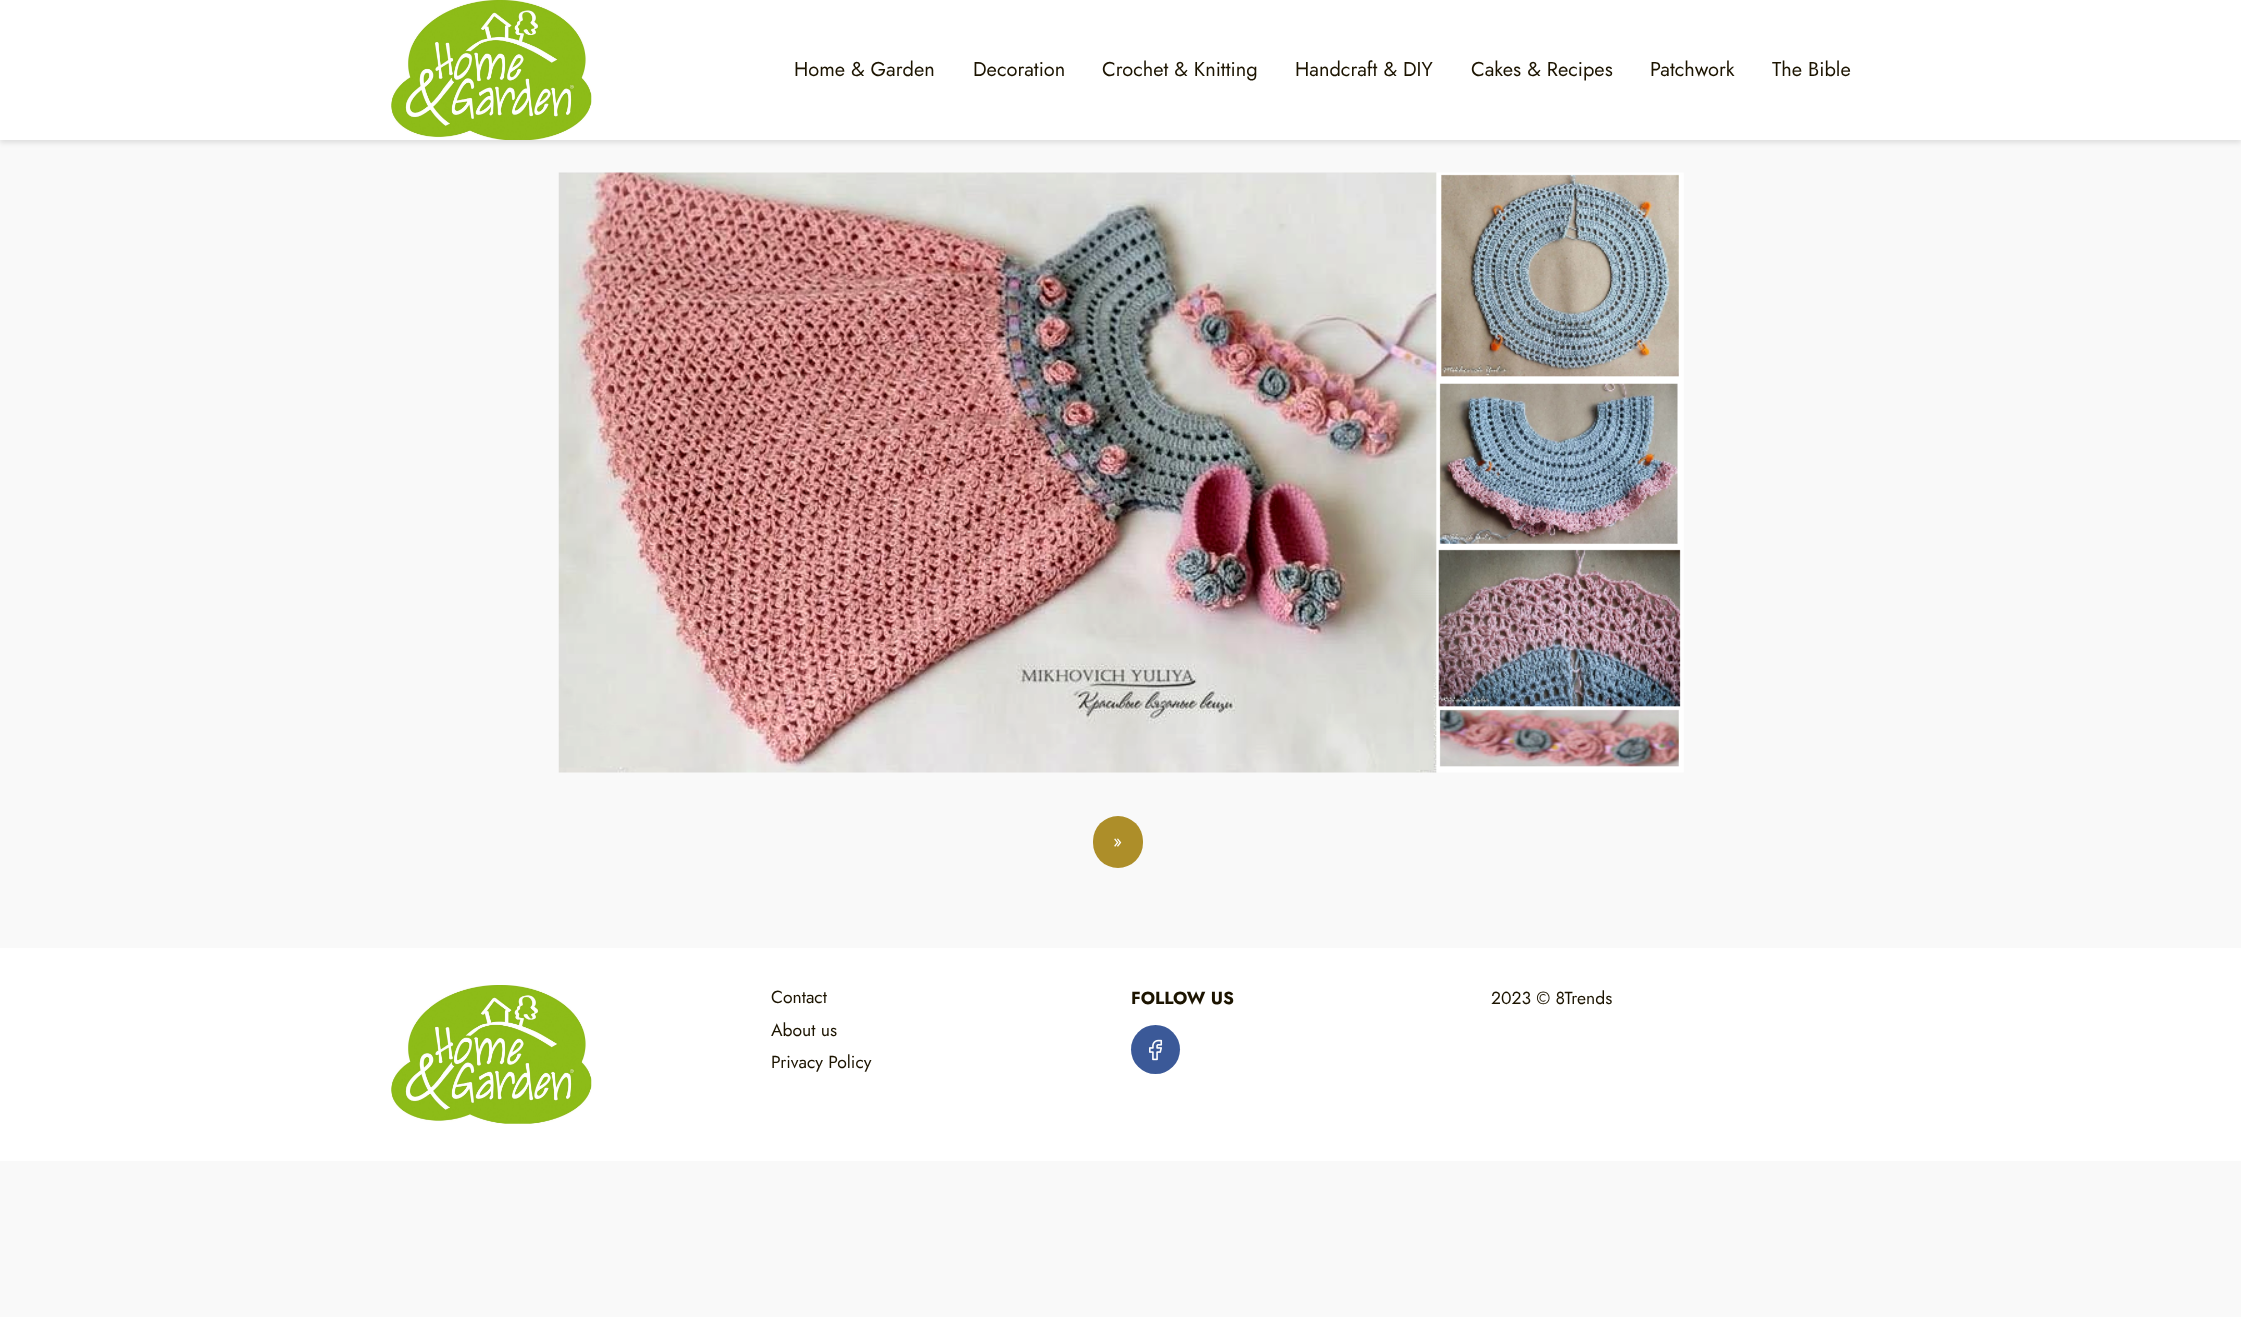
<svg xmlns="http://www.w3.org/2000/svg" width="2241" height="1317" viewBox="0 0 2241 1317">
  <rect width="100%" height="100%" fill="#f9f9f9"/>
  <path d="M0 3h2241v140H0z" fill="#0000001a" filter="blur(2.5px)"/>
  <path d="M0 0h2241v140H0z" fill="#fff"/>
  <image x="391" y="0" width="201" height="140" href="img/1.png"/>
  <image x="558" y="172" width="1126" height="601" href="img/2.png"/>
  <rect x="1093" y="816" width="50" height="52" rx="25" fill="#ad8e29"/>
  <path d="M0 948h2241v213H0z" fill="#fff"/>
  <image x="391" y="985" width="201" height="139" href="img/3.png"/>
  <circle cx="1155.5" cy="1049.5" r="24.5" fill="#3b5998"/>
  <image x="1149" y="1039" width="14" height="22" href="img/4.png"/>
  <g font-family="Jost" font-size="20" fill="#1c1400">
    <text x="794" y="76">Home &amp; Garden</text>
    <text x="973" y="76">Decoration</text>
    <text x="1102" y="76">Crochet &amp; Knitting</text>
    <text x="1295" y="76">Handcraft &amp; DIY</text>
    <text x="1471" y="76">Cakes &amp; Recipes</text>
    <text x="1650" y="76">Patchwork</text>
    <text x="1772" y="76">The Bible</text>
  </g>
  <text x="1113" y="847" font-family="Jost" font-size="17.5" fill="#fff">»</text>
  <g font-family="Jost" font-size="17.5" fill="#1c1400">
    <text x="771" y="1003">Contact</text>
    <text x="771" y="1036">About us</text>
    <text x="771" y="1068">Privacy Policy</text>
  </g>
  <text x="1131" y="1004" font-family="Jost" font-size="17.5" font-weight="bold" fill="#1c1400">FOLLOW US</text>
  <text x="1491" y="1004" font-family="Jost" font-size="17.5" fill="#1c1400">2023 © 8Trends</text>
</svg>
